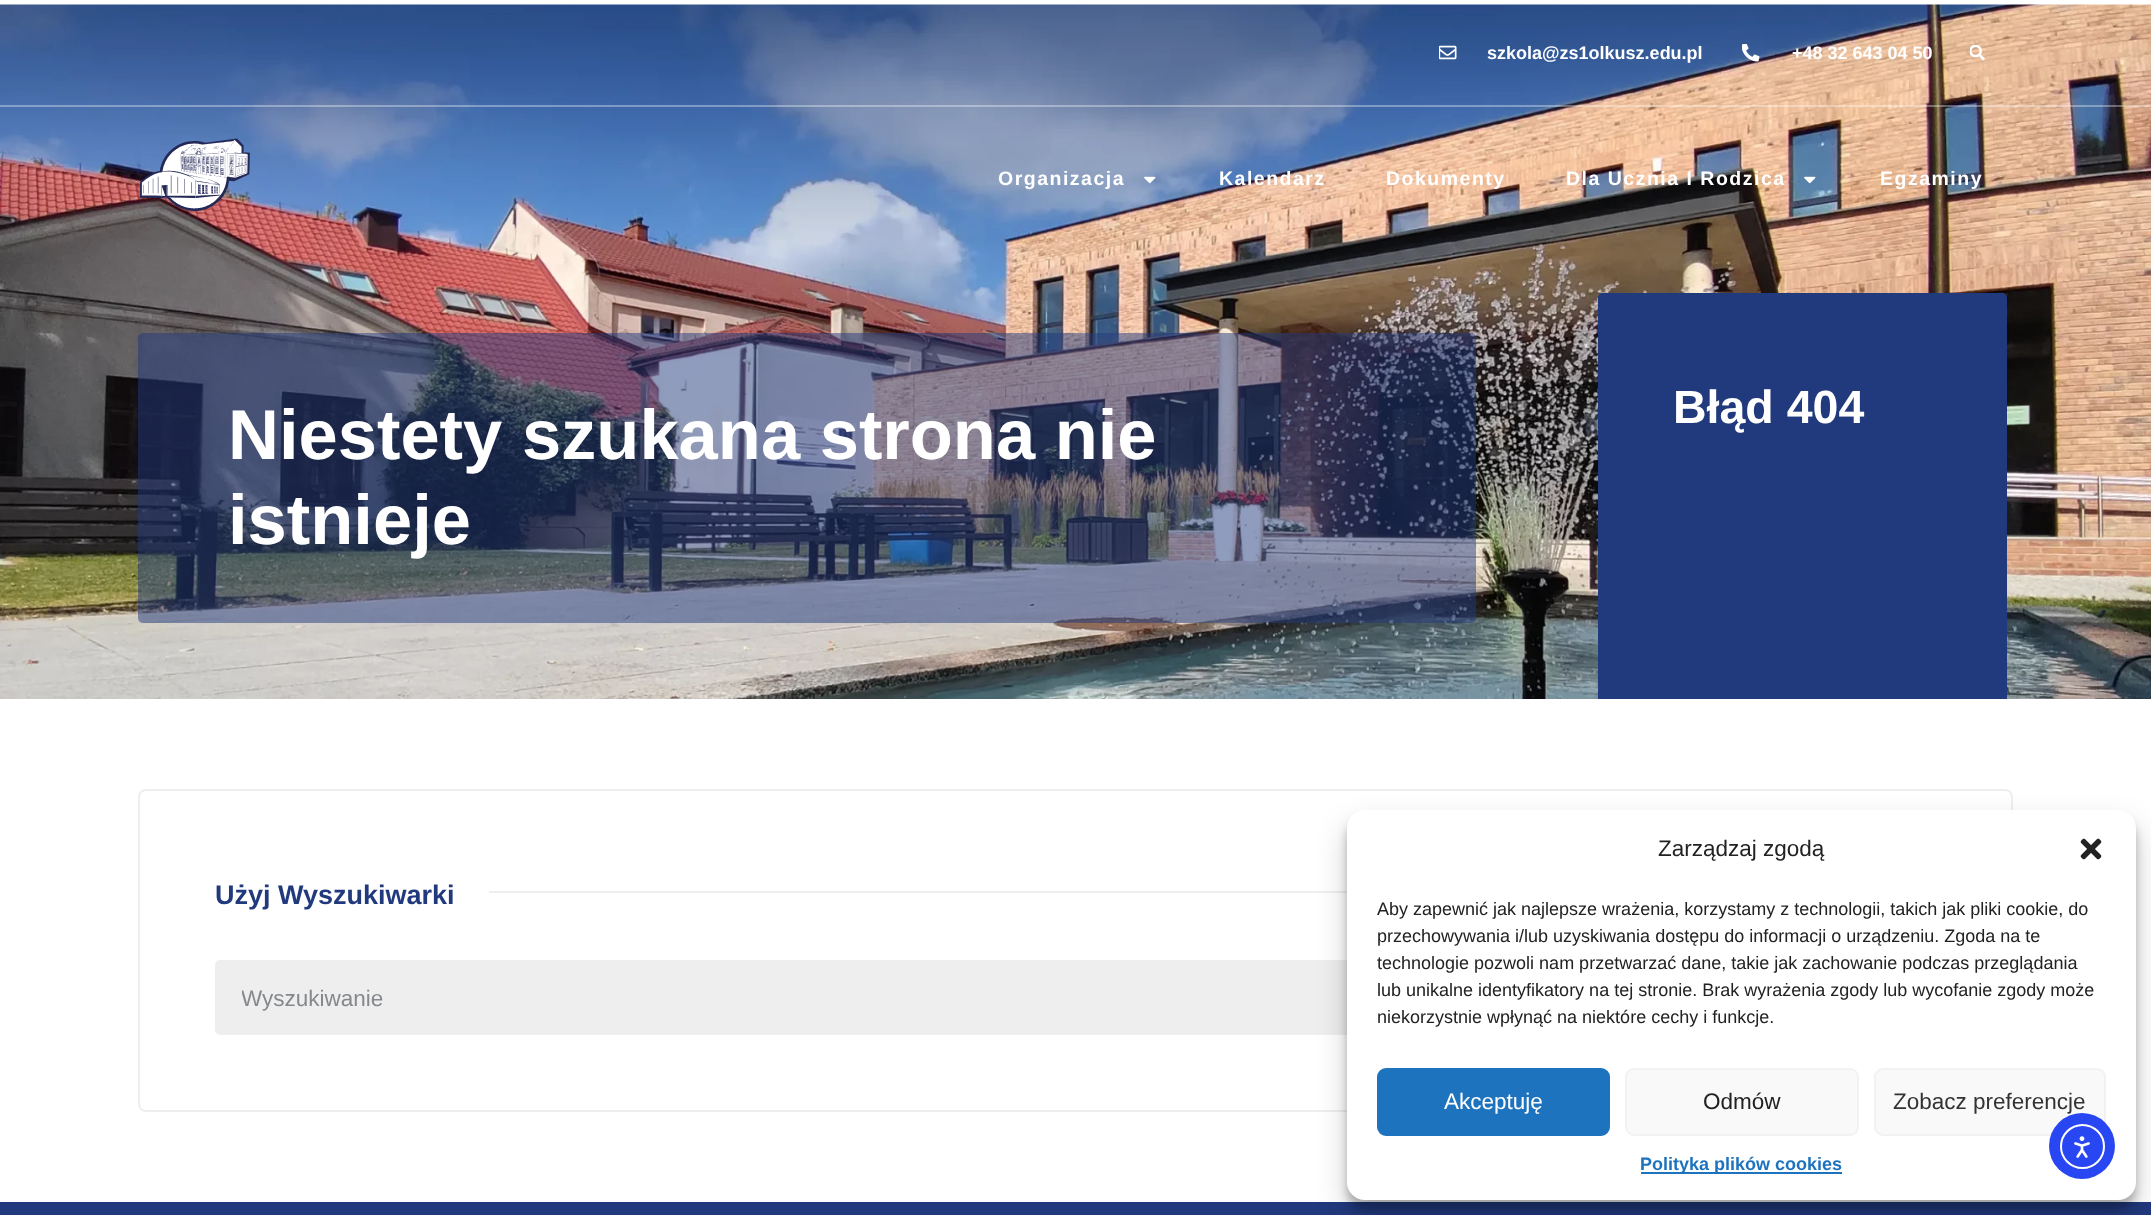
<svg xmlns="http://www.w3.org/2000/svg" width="2151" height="1215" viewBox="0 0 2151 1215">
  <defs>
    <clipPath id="clip1"><path d="M242 986h1572v25H242z"/></clipPath>
  </defs>
  <rect width="100%" height="100%" fill="#fff"/>
  <image x="0" y="4" width="2151" height="695" href="img/7.png"/>
  <path d="M0 105h2151v2H0z" fill="#ffffff57"/>
  <image x="1439" y="45" width="18" height="15" href="img/1.png"/>
  <image x="1742" y="44" width="18" height="18" href="img/2.png"/>
  <image x="1970" y="45" width="15" height="16" href="img/3.png"/>
  <image x="139" y="138" width="111" height="73" href="img/4.png"/>
  <image x="1144" y="176" width="12" height="8" href="img/5.png"/>
  <image x="1804" y="176" width="12" height="8" href="img/6.png"/>
  <rect x="138" y="333" width="1338" height="290" rx="5" fill="#21397d80"/>
  <path d="M1603 293H2002C2005 293 2007 295 2007 298V699H1598V298C1598 295 1600 293 1603 293Z" fill="#21397d"/>
  <rect x="139" y="790" width="1873" height="321" rx="7" fill="none" stroke="#eee" stroke-width="2"/>
  <path d="M489 891h858v2H489z" fill="#eee"/>
  <rect x="216" y="961" width="1720" height="73" rx="4" fill="#eee" stroke="#eee" stroke-width="2"/>
  <path d="M0 1202h2151v13H0z" fill="#21397d"/>
  <rect x="1347" y="819" width="789" height="390" rx="18" fill="#0000003b" filter="blur(4.5px)"/>
  <rect x="1347" y="825" width="789" height="390" rx="18" fill="#00000030" filter="blur(15px)"/>
  <rect x="1347" y="810" width="789" height="390" rx="18" fill="#fff"/>
  <image x="2080" y="838" width="22" height="22" href="img/8.png"/>
  <rect x="1378" y="1069" width="231" height="66" rx="8" fill="#1e73be" stroke="#1e73be" stroke-width="2"/>
  <rect x="1626" y="1069" width="232" height="66" rx="8" fill="#f9f9f9" stroke="#f2f2f2" stroke-width="2"/>
  <rect x="1875" y="1069" width="230" height="66" rx="8" fill="#f9f9f9" stroke="#f2f2f2" stroke-width="2"/>
  <path d="M1641 1172h201v2H1641z" fill="#1e73be"/>
  <g font-family="Liberation Sans" font-size="18" font-weight="bold" fill="#fff">
    <text x="1487" y="59">szkola@zs1olkusz.edu.pl</text>
    <text x="1792" y="59">+48 32 643 04 50</text>
  </g>
  <g font-family="Liberation Sans" font-size="19.5" font-weight="bold" letter-spacing="1.5" fill="#fff">
    <text x="998" y="185">Organizacja</text>
    <text x="1219" y="185">Kalendarz</text>
    <text x="1386" y="185">Dokumenty</text>
    <text x="1566" y="185">Dla Ucznia I Rodzica</text>
    <text x="1880" y="185">Egzaminy</text>
  </g>
  <g font-family="Liberation Sans" font-size="70.5" font-weight="bold" fill="#fff">
    <text x="228" y="459">Niestety szukana strona nie</text>
    <text x="228" y="544">istnieje</text>
  </g>
  <text x="1673" y="423" font-family="Liberation Sans" font-size="46.5" font-weight="bold" fill="#fff">Błąd 404</text>
  <text x="215" y="904" font-family="Liberation Sans" font-size="27" font-weight="bold" fill="#21397d">Użyj Wyszukiwarki</text>
  <g clip-path="url(#clip1)">
    <text x="241" y="1006" font-family="Liberation Sans" font-size="22.5" fill="#85888c">Wyszukiwanie</text>
  </g>
  <text x="1658" y="856" font-family="Liberation Sans" font-size="22.5" fill="#222">Zarządzaj zgodą</text>
  <g font-family="Liberation Sans" font-size="18" fill="#222">
    <text x="1377" y="915">Aby zapewnić jak najlepsze wrażenia, korzystamy z technologii, takich jak pliki cookie, do</text>
    <text x="1377" y="942">przechowywania i/lub uzyskiwania dostępu do informacji o urządzeniu. Zgoda na te</text>
    <text x="1377" y="969">technologie pozwoli nam przetwarzać dane, takie jak zachowanie podczas przeglądania</text>
    <text x="1377" y="996">lub unikalne identyfikatory na tej stronie. Brak wyrażenia zgody lub wycofanie zgody może</text>
    <text x="1377" y="1023">niekorzystnie wpłynąć na niektóre cechy i funkcje.</text>
  </g>
  <text x="1444" y="1109" font-family="Liberation Sans" font-size="22.5" fill="#fff">Akceptuję</text>
  <text x="1703" y="1109" font-family="Liberation Sans" font-size="22.5" fill="#222">Odmów</text>
  <text x="1893" y="1109" font-family="Liberation Sans" font-size="22.5" fill="#333">Zobacz preferencje</text>
  <text x="1640" y="1170" font-family="Liberation Sans" font-size="18" font-weight="bold" fill="#1e73be">Polityka plików cookies</text>
  <circle cx="2082" cy="1146" r="33" fill="#2847f3"/>
  <circle cx="2082.5" cy="1146.5" r="21.5" fill="none" stroke="#fff" stroke-width="2"/>
  <image x="2074" y="1136" width="16" height="22" href="img/9.png"/>
</svg>
